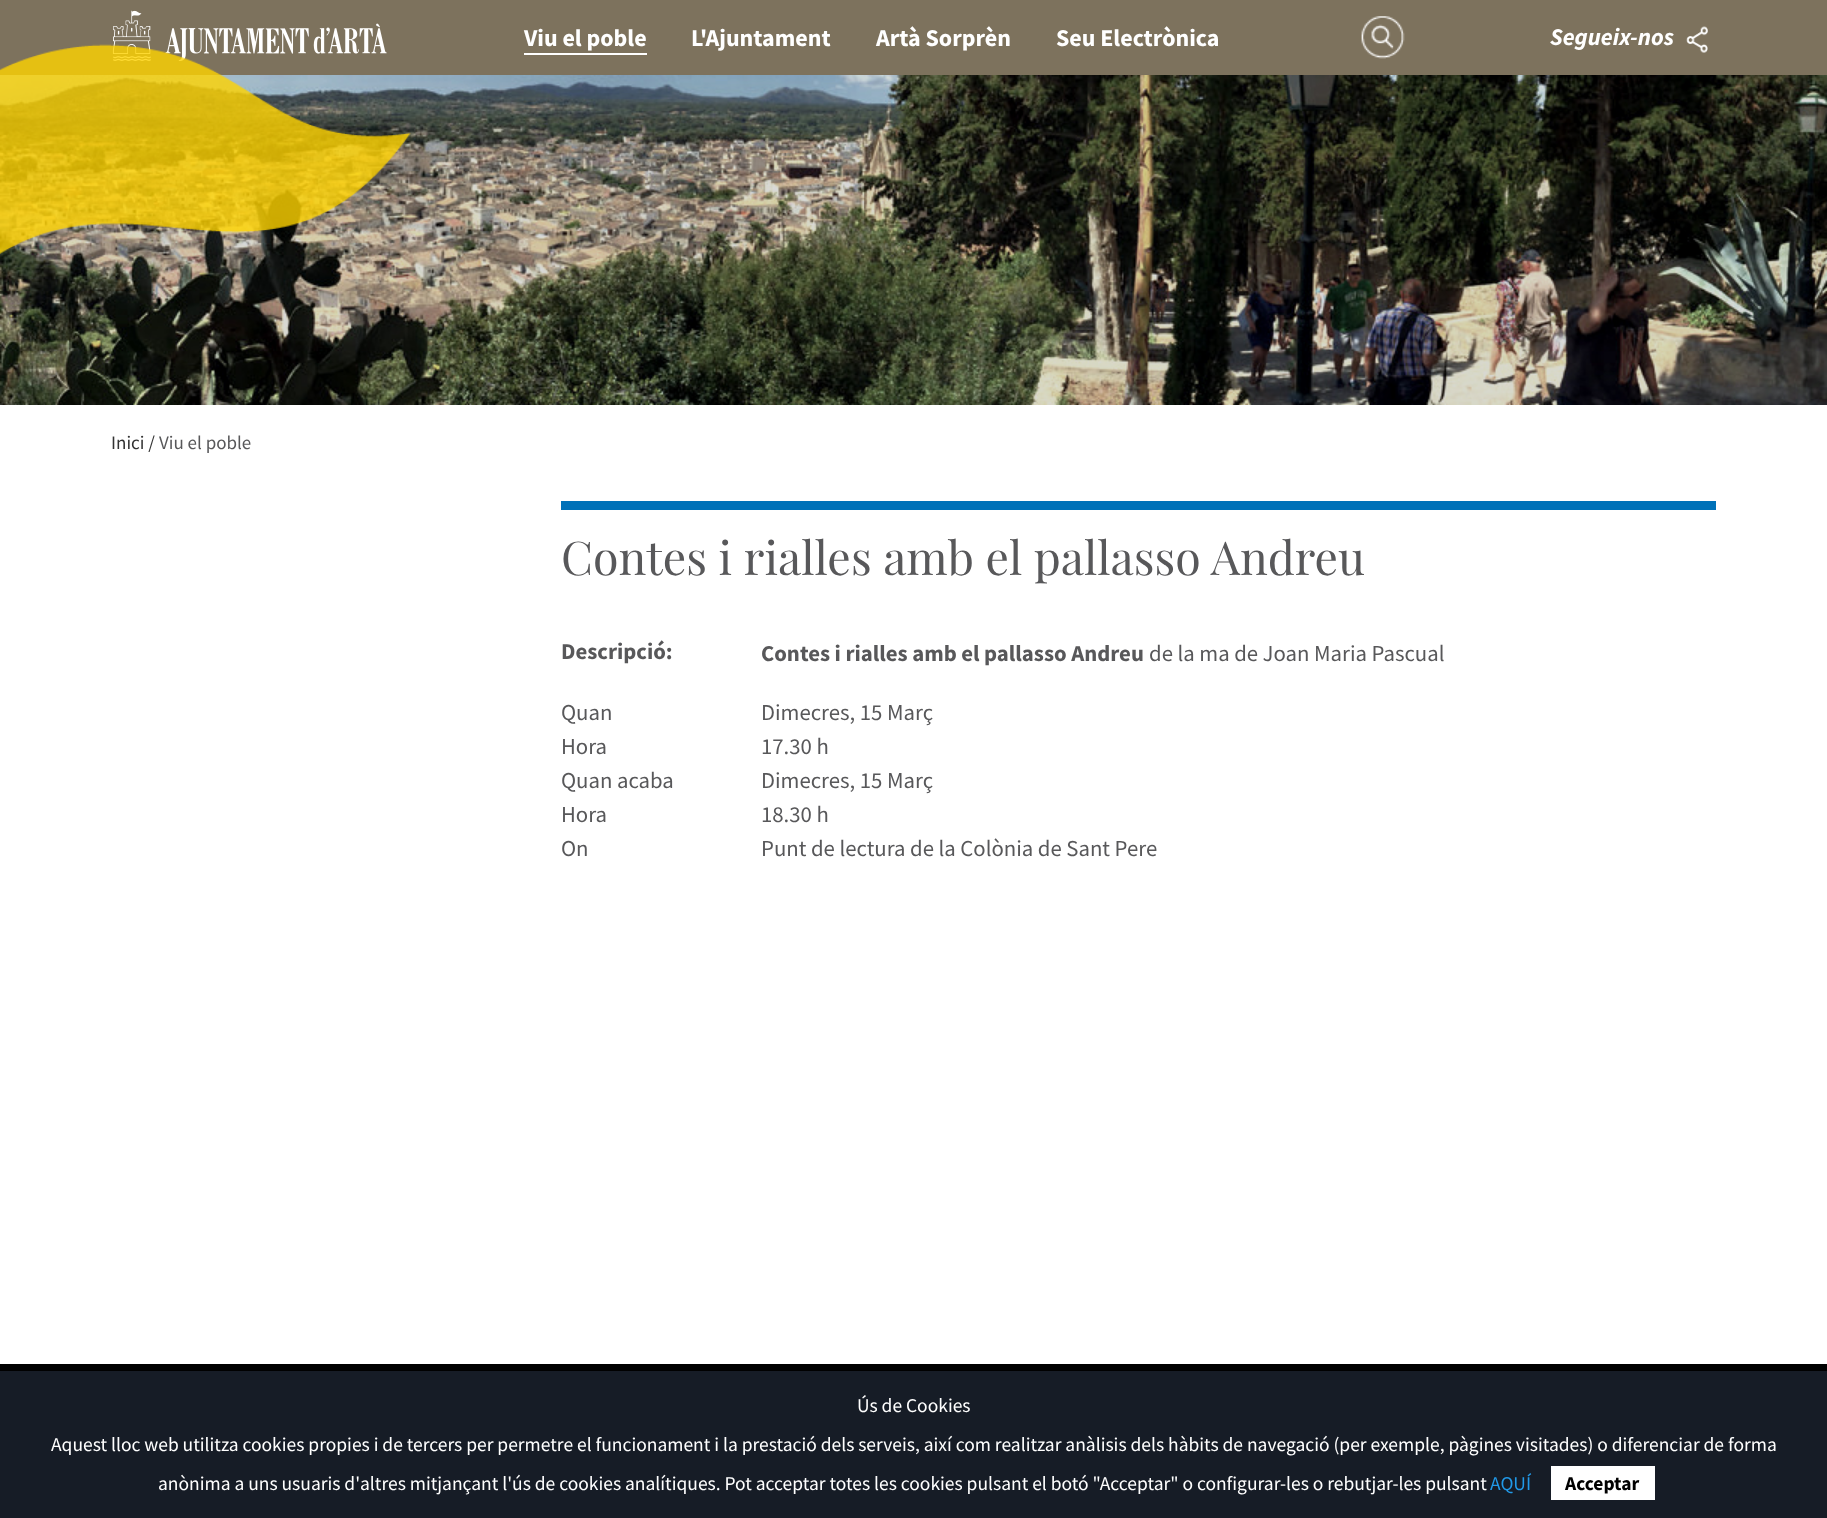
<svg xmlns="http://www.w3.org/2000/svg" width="1827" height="1518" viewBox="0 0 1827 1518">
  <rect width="100%" height="100%" fill="#fff"/>
  <path d="M0 0h1827v75H0z" fill="#7d725d"/>
  <image x="112" y="10" width="275" height="51" href="img/1.png"/>
  <path d="M524 53h123v2H524z" fill="#fff"/>
  <image x="1361" y="16" width="44" height="43" href="img/2.png"/>
  <image x="1686" y="26" width="22" height="27" href="img/3.png"/>
  <image x="0" y="75" width="1827" height="330" href="img/5.png"/>
  <image x="0" y="44" width="411" height="210" href="img/4.png"/>
  <path d="M561 501h1155v9H561z" fill="#0071b8"/>
  <path d="M0 1371h1827v147H0z" fill="#161c26"/>
  <path d="M0 1364h1827v7H0z" fill="#000"/>
  <path d="M1551 1466h104v34H1551z" fill="#fff"/>
  <g font-family="Source Sans Pro" font-size="24" font-weight="bold" fill="#fff">
    <text x="524" y="46">Viu el poble</text>
    <text x="691" y="46">L'Ajuntament</text>
    <text x="876" y="46">Artà Sorprèn</text>
    <text x="1056" y="46">Seu Electrònica</text>
  </g>
  <text x="1550" y="45" font-family="Source Sans Pro" font-size="24" font-weight="bold" font-style="italic" fill="#fff">Segueix-nos</text>
  <text x="111" y="449" font-family="Source Sans Pro" font-size="19" fill="#333">Inici /</text>
  <text x="159" y="449" font-family="Source Sans Pro" font-size="19" fill="#58585a">Viu el poble</text>
  <text x="561" y="575" font-family="Playfair Display" font-size="46.5" fill="#58585a">Contes i rialles amb el pallasso Andreu</text>
  <g font-family="Source Sans Pro" font-size="22.75" font-weight="bold" fill="#58585a">
    <text x="561" y="659">Descripció:</text>
    <text x="761" y="661">Contes i rialles amb el pallasso Andreu</text>
  </g>
  <g font-family="Source Sans Pro" font-size="22.75" fill="#58585a">
    <text x="1149" y="661">de la ma de Joan Maria Pascual</text>
    <text x="561" y="720">Quan</text>
    <text x="761" y="720">Dimecres, 15 Març</text>
    <text x="561" y="754">Hora</text>
    <text x="761" y="754">17.30 h</text>
    <text x="561" y="788">Quan acaba</text>
    <text x="761" y="788">Dimecres, 15 Març</text>
    <text x="561" y="822">Hora</text>
    <text x="761" y="822">18.30 h</text>
    <text x="561" y="856">On</text>
    <text x="761" y="856">Punt de lectura de la Colònia de Sant Pere</text>
  </g>
  <g font-family="Source Sans Pro" font-size="19.5" fill="#fff">
    <text x="857" y="1412">Ús de Cookies</text>
    <text x="51" y="1451">Aquest lloc web utilitza cookies propies i de tercers per permetre el funcionament i la prestació dels serveis, així com realitzar anàlisis dels hàbits de navegació (per exemple, pàgines visitades) o diferenciar de forma</text>
    <text x="158" y="1490">anònima a uns usuaris d'altres mitjançant l'ús de cookies analítiques. Pot acceptar totes les cookies pulsant el botó "Acceptar" o configurar-les o rebutjar-les pulsant</text>
  </g>
  <text x="1490" y="1490" font-family="Source Sans Pro" font-size="19.5" fill="#2199e8">AQUÍ</text>
  <text x="1565" y="1490" font-family="Source Sans Pro" font-size="19.5" font-weight="bold" fill="#000">Acceptar</text>
</svg>
